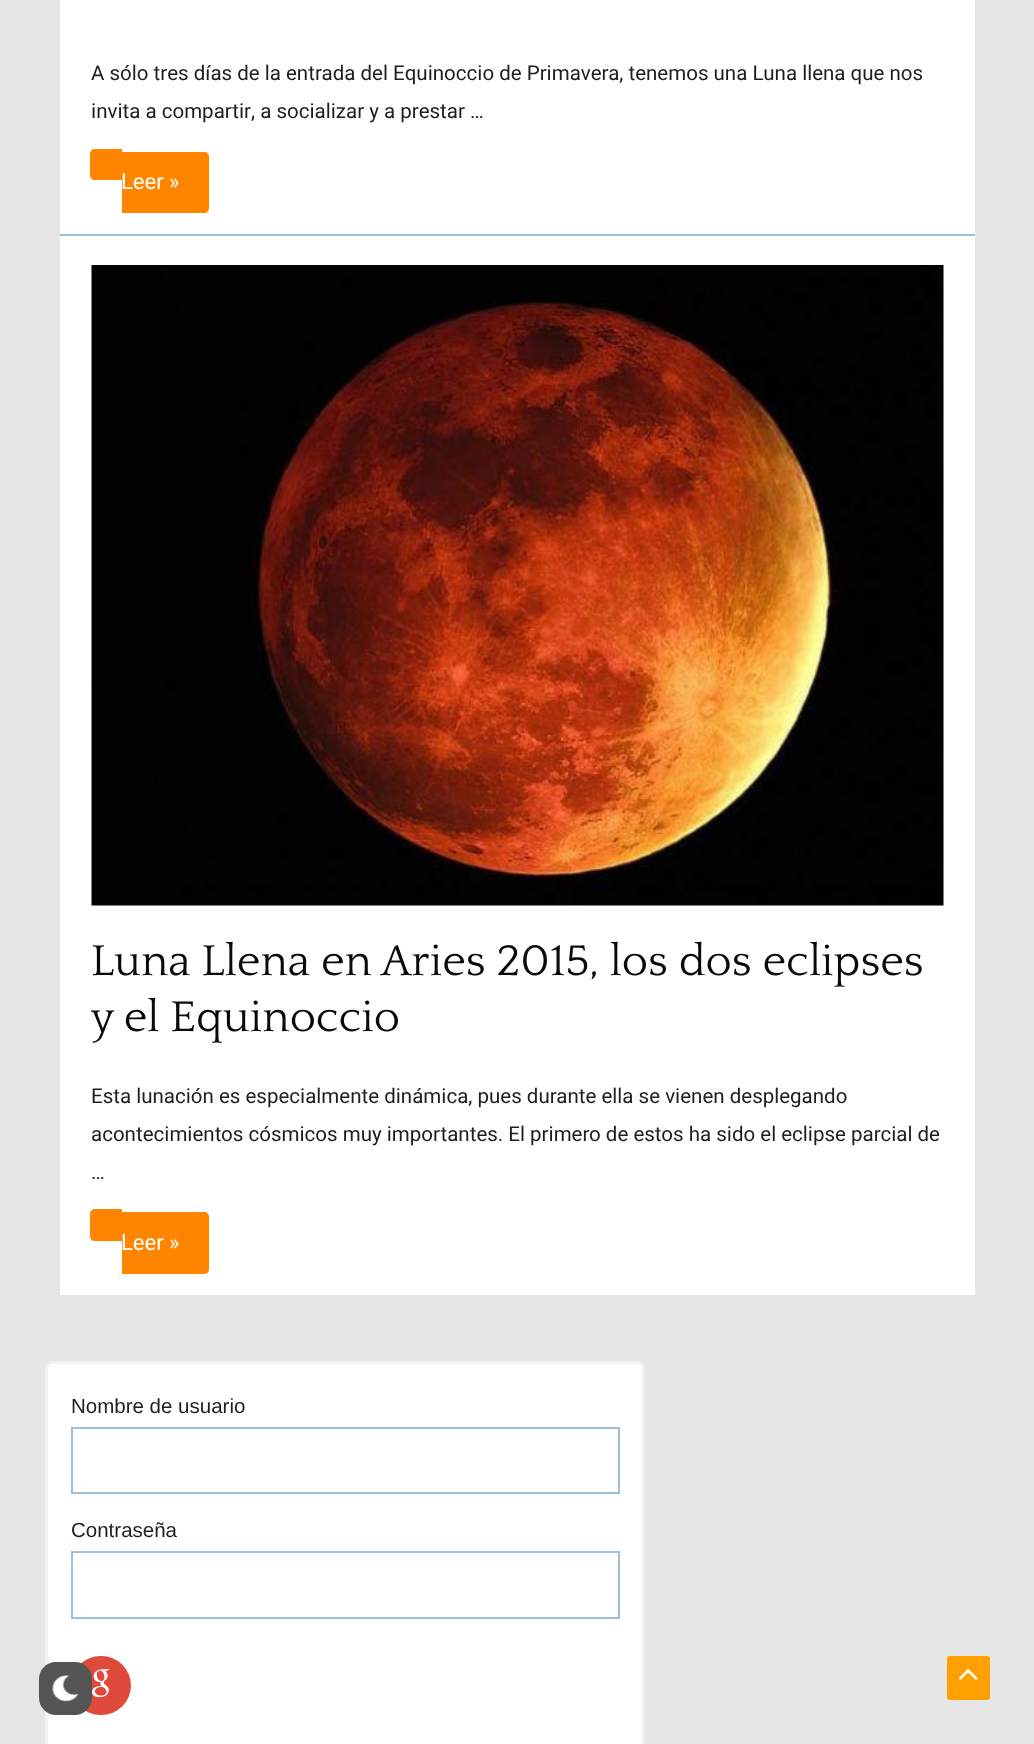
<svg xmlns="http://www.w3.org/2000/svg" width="1034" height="1744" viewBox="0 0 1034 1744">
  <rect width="100%" height="100%" fill="#e6e6e6"/>
  <path d="M60 234h915v2H60z" fill="#9cc0dc"/>
  <path d="M60 0h915v234H60z" fill="#fff"/>
  <path d="M95 149H122V180H95C92 180 90 178 90 175V154C90 151 92 149 95 149Z" fill="#ff8500"/>
  <path d="M122 152H204C207 152 209 154 209 157V208C209 211 207 213 204 213H122Z" fill="#ff8500"/>
  <path d="M60 236h915v1059H60z" fill="#fff"/>
  <image x="91" y="265" width="853" height="641" href="img/1.png"/>
  <path d="M95 1209H122V1241H95C92 1241 90 1239 90 1236V1214C90 1211 92 1209 95 1209Z" fill="#ff8500"/>
  <path d="M122 1212H204C207 1212 209 1214 209 1217V1269C209 1272 207 1274 204 1274H122Z" fill="#ff8500"/>
  <rect x="46.5" y="1362.5" width="597" height="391" rx="6.5" fill="#fff" stroke="#f1f1f1" stroke-width="3"/>
  <path d="M72 1428h547v65H72z" fill="none" stroke="#9cc0dc" stroke-width="2"/>
  <path d="M72 1552h547v66H72z" fill="none" stroke="#9cc0dc" stroke-width="2"/>
  <rect x="71" y="1656" width="60" height="59" rx="29.5" fill="#de4b3b"/>
  <image x="92" y="1669" width="18" height="29" href="img/2.png"/>
  <rect x="39" y="1662" width="53" height="53" rx="17" fill="#555"/>
  <image x="52" y="1675" width="27" height="27" href="img/3.png"/>
  <rect x="947" y="1656" width="43" height="44" rx="3" fill="#fda000"/>
  <path d="M978 1678.5L968 1668.5L958.5 1678.5L960.5 1680L968 1672.5L976 1680Z" fill="#fff"/>
  <g font-family="Heebo" font-size="20.5" fill="#1c1e22">
    <text x="91" y="80">A sólo tres días de la entrada del Equinoccio de Primavera, tenemos una Luna llena que nos</text>
    <text x="91" y="118">invita a compartir, a socializar y a prestar …</text>
  </g>
  <text x="121" y="189" font-family="Heebo" font-size="22" fill="#fff">Leer »</text>
  <g font-family="Quattrocento" font-size="45" fill="#0a0a0a">
    <text x="91" y="975">Luna Llena en Aries 2015, los dos eclipses</text>
    <text x="91" y="1031">y el Equinoccio</text>
  </g>
  <g font-family="Heebo" font-size="20.5" fill="#1c1e22">
    <text x="91" y="1103">Esta lunación es especialmente dinámica, pues durante ella se vienen desplegando</text>
    <text x="91" y="1141">acontecimientos cósmicos muy importantes. El primero de estos ha sido el eclipse parcial de</text>
    <text x="91" y="1179">…</text>
  </g>
  <text x="121" y="1250" font-family="Heebo" font-size="22" fill="#fff">Leer »</text>
  <g font-family="Liberation Sans" font-size="20.5" fill="#1c1e22">
    <text x="71" y="1413">Nombre de usuario</text>
    <text x="71" y="1537">Contraseña</text>
  </g>
</svg>
